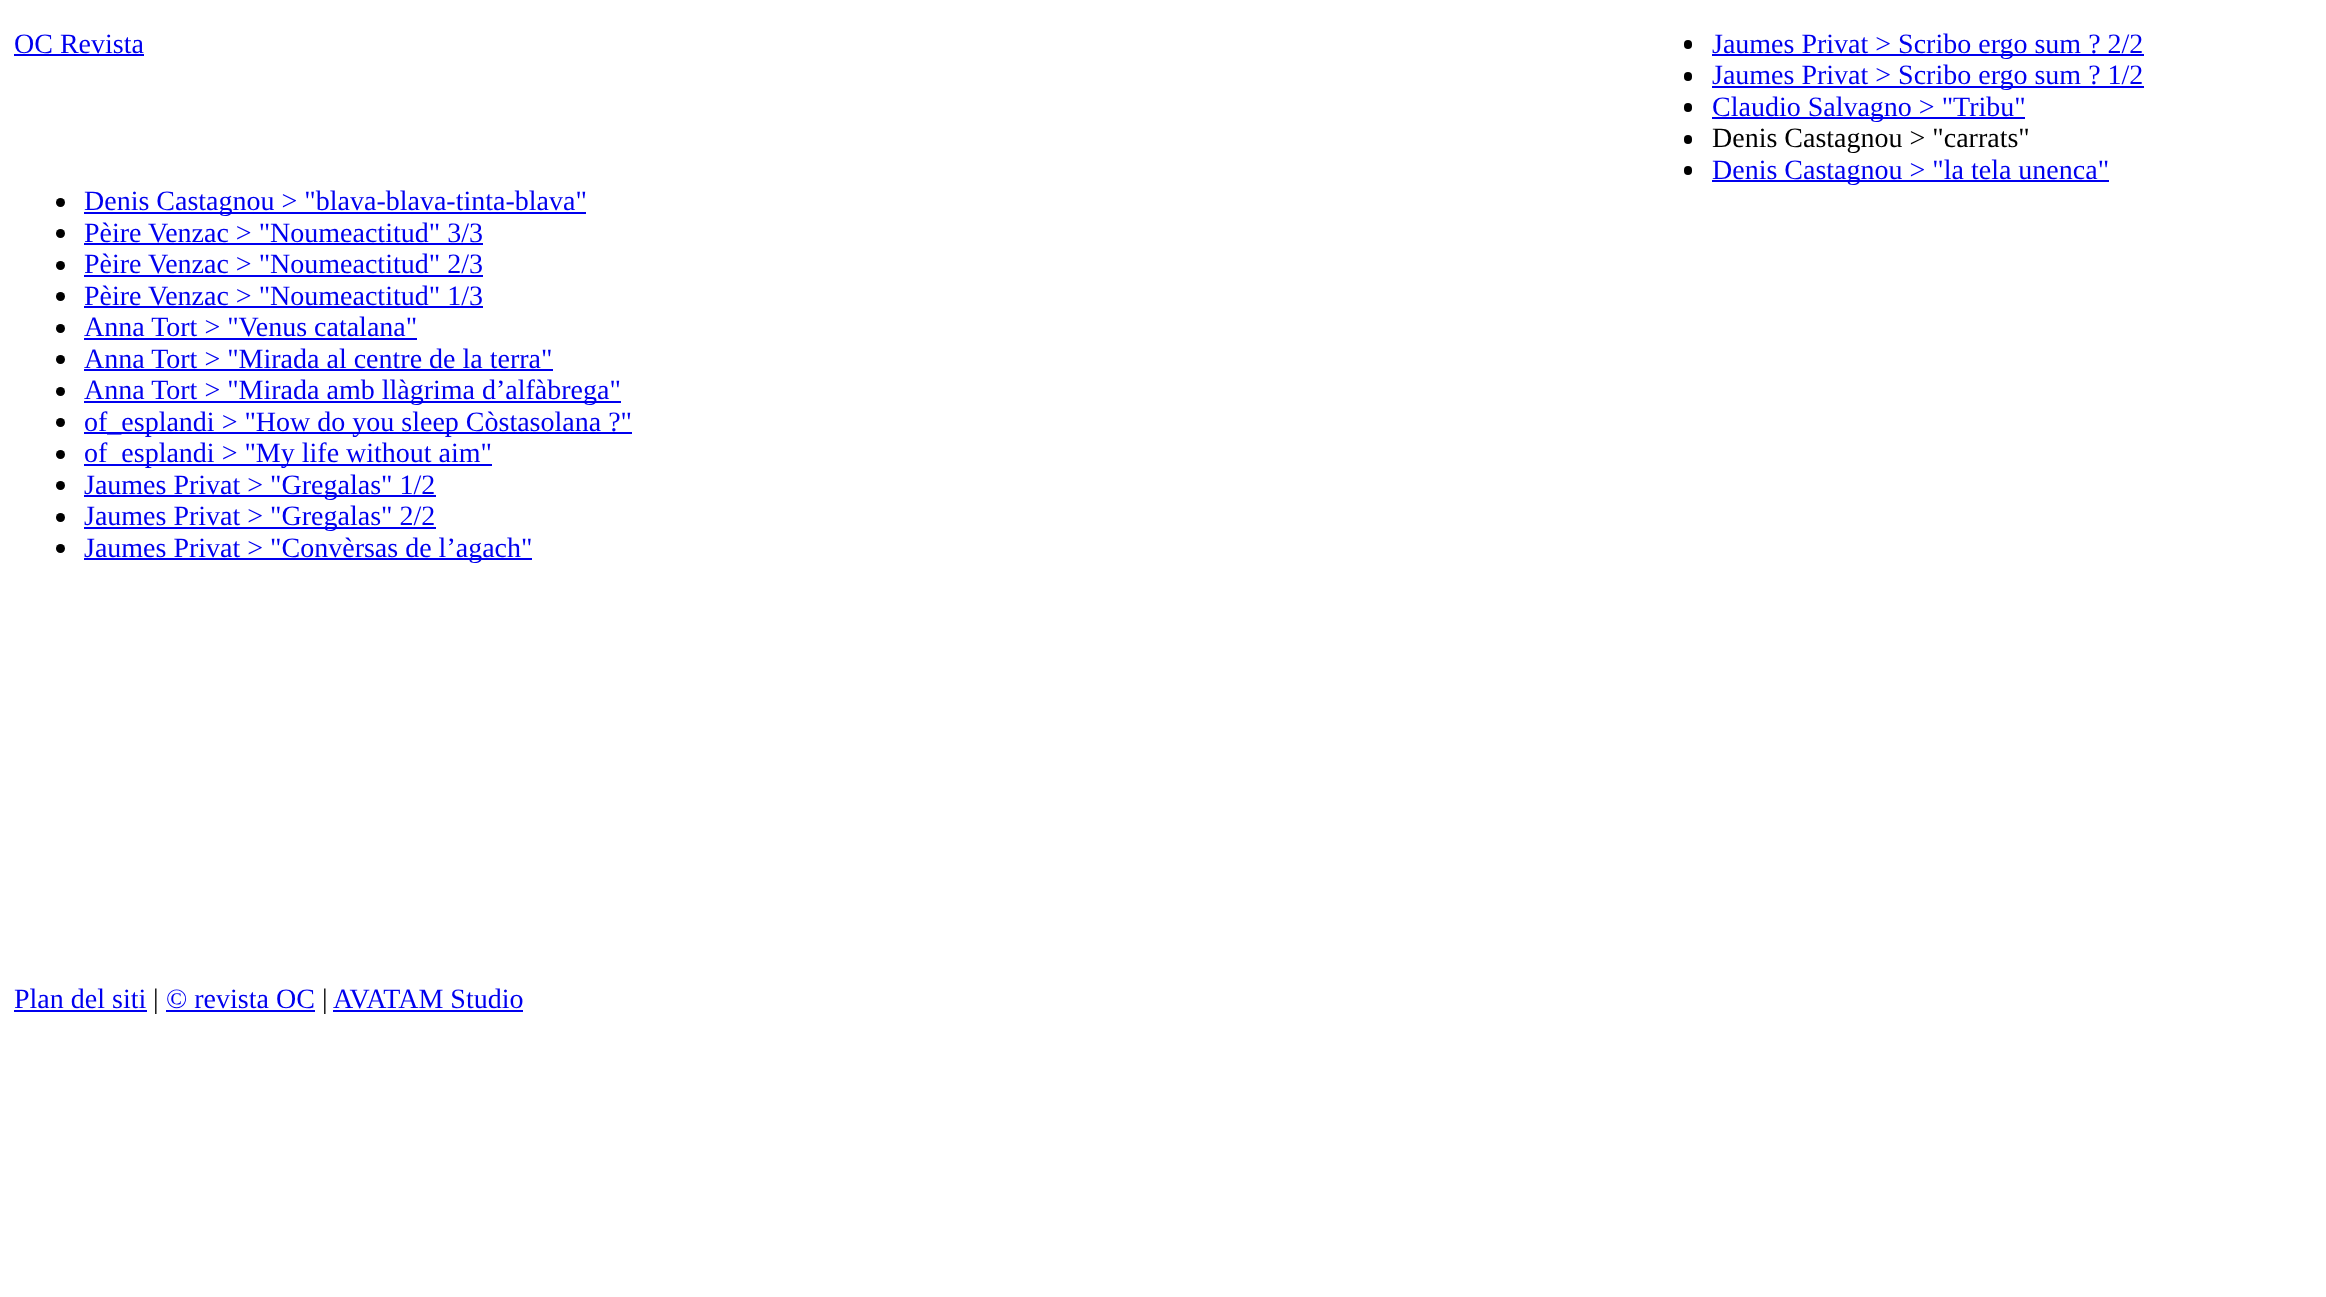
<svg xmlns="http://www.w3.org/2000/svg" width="2326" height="1297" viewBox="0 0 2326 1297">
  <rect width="100%" height="100%" fill="#fff"/>
  <path d="M14 54h130v2H14z" fill="#00e"/>
  <rect x="1684" y="40" width="8" height="9" rx="4" fill="#000"/>
  <path d="M1712 54h432v2H1712z" fill="#00e"/>
  <rect x="1684" y="72" width="8" height="9" rx="4" fill="#000"/>
  <path d="M1712 86h432v2H1712z" fill="#00e"/>
  <rect x="1684" y="103" width="8" height="9" rx="4" fill="#000"/>
  <path d="M1712 117h313v2H1712z" fill="#00e"/>
  <rect x="1684" y="135" width="8" height="9" rx="4" fill="#000"/>
  <rect x="1684" y="166" width="8" height="9" rx="4" fill="#000"/>
  <path d="M1712 180h397v2H1712z" fill="#00e"/>
  <circle cx="60.5" cy="202.5" r="4.5" fill="#000"/>
  <path d="M84 212h502v2H84z" fill="#00e"/>
  <circle cx="60.5" cy="233.5" r="4.5" fill="#000"/>
  <path d="M84 243h399v2H84z" fill="#00e"/>
  <circle cx="60.5" cy="265.5" r="4.5" fill="#000"/>
  <path d="M84 275h399v2H84z" fill="#00e"/>
  <circle cx="60.5" cy="296.5" r="4.5" fill="#000"/>
  <path d="M84 306h399v2H84z" fill="#00e"/>
  <circle cx="60.5" cy="328.5" r="4.5" fill="#000"/>
  <path d="M84 338h333v2H84z" fill="#00e"/>
  <circle cx="60.5" cy="359.5" r="4.5" fill="#000"/>
  <path d="M84 369h469v2H84z" fill="#00e"/>
  <circle cx="60.5" cy="391.5" r="4.5" fill="#000"/>
  <path d="M84 401h537v2H84z" fill="#00e"/>
  <circle cx="60.5" cy="422.5" r="4.5" fill="#000"/>
  <path d="M84 432h548v2H84z" fill="#00e"/>
  <circle cx="60.5" cy="454.5" r="4.5" fill="#000"/>
  <path d="M84 464h408v2H84z" fill="#00e"/>
  <circle cx="60.5" cy="485.5" r="4.5" fill="#000"/>
  <path d="M84 495h352v2H84z" fill="#00e"/>
  <circle cx="60.5" cy="517.5" r="4.5" fill="#000"/>
  <path d="M84 527h352v2H84z" fill="#00e"/>
  <circle cx="60.5" cy="548.5" r="4.5" fill="#000"/>
  <path d="M84 558h448v2H84z" fill="#00e"/>
  <path d="M14 1010h133v2H14z" fill="#00e"/>
  <path d="M166 1010h149v2H166z" fill="#00e"/>
  <path d="M333 1010h190v2H333z" fill="#00e"/>
  <g font-family="Liberation Serif" font-size="28" fill="#00e">
    <text x="14" y="53">OC Revista</text>
    <text x="1712" y="53">Jaumes Privat &gt; Scribo ergo sum ? 2/2</text>
    <text x="1712" y="84">Jaumes Privat &gt; Scribo ergo sum ? 1/2</text>
    <text x="1712" y="116">Claudio Salvagno &gt; "Tribu"</text>
  </g>
  <text x="1712" y="147" font-family="Liberation Serif" font-size="28" fill="#000">Denis Castagnou &gt; "carrats"</text>
  <g font-family="Liberation Serif" font-size="28" fill="#00e">
    <text x="1712" y="179">Denis Castagnou &gt; "la tela unenca"</text>
    <text x="84" y="210">Denis Castagnou &gt; "blava-blava-tinta-blava"</text>
    <text x="84" y="242">Pèire Venzac &gt; "Noumeactitud" 3/3</text>
    <text x="84" y="273">Pèire Venzac &gt; "Noumeactitud" 2/3</text>
    <text x="84" y="305">Pèire Venzac &gt; "Noumeactitud" 1/3</text>
    <text x="84" y="336">Anna Tort &gt; "Venus catalana"</text>
    <text x="84" y="368">Anna Tort &gt; "Mirada al centre de la terra"</text>
    <text x="84" y="399">Anna Tort &gt; "Mirada amb llàgrima d’alfàbrega"</text>
    <text x="84" y="431">of_esplandi &gt; "How do you sleep Còstasolana ?"</text>
    <text x="84" y="462">of_esplandi &gt; "My life without aim"</text>
    <text x="84" y="494">Jaumes Privat &gt; "Gregalas" 1/2</text>
    <text x="84" y="525">Jaumes Privat &gt; "Gregalas" 2/2</text>
    <text x="84" y="557">Jaumes Privat &gt; "Convèrsas de l’agach"</text>
    <text x="14" y="1008">Plan del siti</text>
  </g>
  <text x="153" y="1008" font-family="Liberation Serif" font-size="28" fill="#000">|</text>
  <text x="166" y="1008" font-family="Liberation Serif" font-size="28" fill="#00e">© revista OC</text>
  <text x="322" y="1008" font-family="Liberation Serif" font-size="28" fill="#000">|</text>
  <text x="333" y="1008" font-family="Liberation Serif" font-size="28" fill="#00e">AVATAM Studio</text>
</svg>
